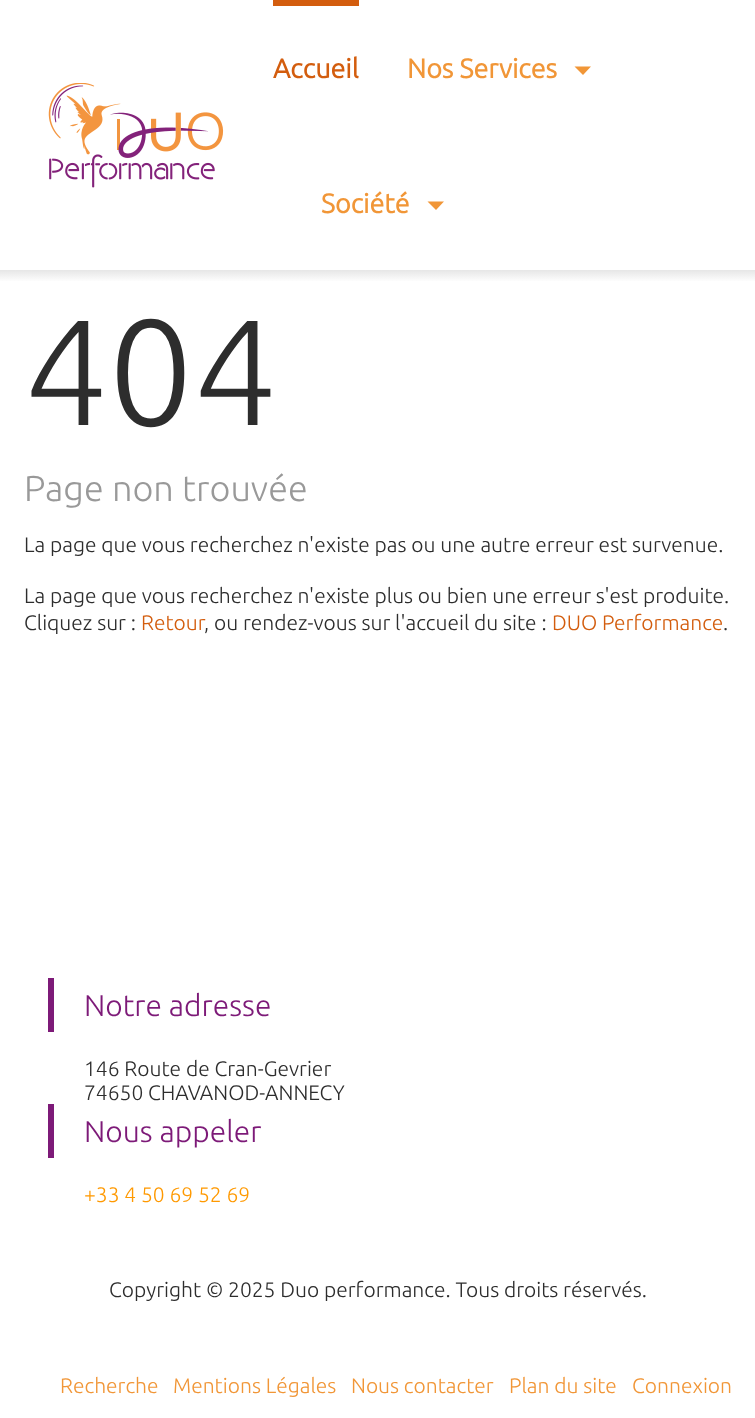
<svg xmlns="http://www.w3.org/2000/svg" width="755" height="1418" viewBox="0 0 755 1418">
  <defs>
    <linearGradient id="g1" gradientUnits="userSpaceOnUse" x1="378" y1="270" x2="378" y2="282"><stop offset="0" stop-color="#e6e6e6"/><stop offset="1" stop-color="#fff"/></linearGradient>
  </defs>
  <rect width="100%" height="100%" fill="#fff"/>
  <image x="48" y="83" width="176" height="105" href="img/1.png"/>
  <path d="M273 0h86v6H273z" fill="#d35d0e"/>
  <path d="M574.5 66.5L583 75L591 66.5Z" fill="#f19637"/>
  <path d="M427.5 201.5L436 210L444 201.5Z" fill="#f19637"/>
  <path d="M0 270h755v11H0z" fill="url(#g1)"/>
  <path d="M48 978h6v54H48z" fill="#7d1a78"/>
  <path d="M48 1104h6v54H48z" fill="#7d1a78"/>
  <text x="273" y="78" font-family="Ubuntu" font-size="27" font-weight="bold" fill="#d35d0e">Accueil</text>
  <g font-family="Ubuntu" font-size="27" font-weight="bold" fill="#f19637">
    <text x="407" y="78">Nos Services</text>
    <text x="321" y="213">Société</text>
  </g>
  <text x="24" y="425" font-family="Ubuntu" font-size="150" font-weight="300" fill="#2d2d2d">404</text>
  <text x="24" y="501" font-family="Ubuntu" font-size="36" font-weight="300" fill="#999">Page non trouvée</text>
  <g font-family="Ubuntu" font-size="21" font-weight="300" fill="#2d2d2d">
    <text x="24" y="552">La page que vous recherchez n'existe pas ou une autre erreur est survenue.</text>
    <text x="24" y="603">La page que vous recherchez n'existe plus ou bien une erreur s'est produite.</text>
    <text x="24" y="630">Cliquez sur :</text>
  </g>
  <text x="141" y="630" font-family="Ubuntu" font-size="21" font-weight="300" fill="#d35d0e">Retour</text>
  <text x="204" y="630" font-family="Ubuntu" font-size="21" font-weight="300" fill="#2d2d2d">, ou rendez-vous sur l'accueil du site :</text>
  <text x="552" y="630" font-family="Ubuntu" font-size="21" font-weight="300" fill="#d35d0e">DUO Performance</text>
  <text x="723" y="630" font-family="Ubuntu" font-size="21" font-weight="300" fill="#2d2d2d">.</text>
  <text x="84" y="1016" font-family="Ubuntu" font-size="30" font-weight="300" fill="#7d1a78">Notre adresse</text>
  <g font-family="Ubuntu" font-size="21" font-weight="300" fill="#2d2d2d">
    <text x="84" y="1076">146 Route de Cran-Gevrier</text>
    <text x="84" y="1100">74650 CHAVANOD-ANNECY</text>
  </g>
  <text x="84" y="1142" font-family="Ubuntu" font-size="30" font-weight="300" fill="#7d1a78">Nous appeler</text>
  <text x="84" y="1202" font-family="Ubuntu" font-size="21" font-weight="300" fill="#f90">+33 4 50 69 52 69</text>
  <text x="109" y="1297" font-family="Ubuntu" font-size="21" font-weight="300" fill="#2d2d2d">Copyright © 2025 Duo performance. Tous droits réservés.</text>
  <g font-family="Ubuntu" font-size="21" font-weight="300" fill="#f19637">
    <text x="60" y="1393">Recherche</text>
    <text x="173" y="1393">Mentions Légales</text>
    <text x="351" y="1393">Nous contacter</text>
    <text x="509" y="1393">Plan du site</text>
    <text x="632" y="1393">Connexion</text>
  </g>
</svg>
